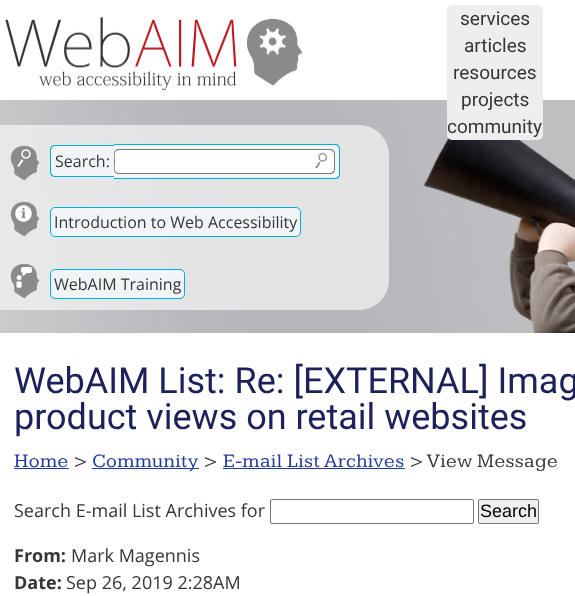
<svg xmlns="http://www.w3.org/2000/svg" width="575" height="596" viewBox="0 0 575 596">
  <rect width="100%" height="100%" fill="#fff"/>
  <image x="0" y="100" width="575" height="233" href="img/1.png"/>
  <image x="5" y="16" width="297" height="75" href="img/2.png"/>
  <image x="258" y="26" width="29" height="29" href="img/3.png"/>
  <rect x="447" y="5" width="96" height="135" rx="5" fill="#eee"/>
  <rect x="-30" y="125" width="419" height="185" rx="30" fill="#f7f7f7b3"/>
  <image x="10" y="145" width="30" height="36" href="img/4.png"/>
  <path d="M55 145H110V177H55C52 177 50 175 50 172V150C50 147 52 145 55 145Z" fill="#f1f5f7"/>
  <path d="M55 145H110V177H55C52 177 50 175 50 172V150C50 147 52 145 55 145ZM55 146H110V176H55C53 176 51 174 51 172V150C51 148 53 146 55 146Z" fill="#00afd8" fill-rule="evenodd"/>
  <path d="M110 145h4v32H110z" fill="#f1f5f7"/>
  <path d="M110 145h4v1H110z" fill="#00afd8"/>
  <path d="M110 176h4v1H110z" fill="#00afd8"/>
  <path d="M114 145h194v33H114z" fill="#f1f5f7"/>
  <path d="M114 144h194v1H114z" fill="#00afd8"/>
  <path d="M114 178h194v1H114z" fill="#00afd8"/>
  <path d="M308 144H335C338 144 340 146 340 149V174C340 177 338 179 335 179H308Z" fill="#f1f5f7"/>
  <path d="M308 144H335C338 144 340 146 340 149V174C340 177 338 179 335 179H308ZM308 145H335C337 145 339 147 339 149V174C339 176 337 178 335 178H308Z" fill="#00afd8" fill-rule="evenodd"/>
  <path d="M119 149H308V174H119C116 174 114 172 114 169V154C114 151 116 149 119 149Z" fill="#fff"/>
  <path d="M119 149H308V174H119C116 174 114 172 114 169V154C114 151 116 149 119 149ZM119 150H308V173H119C113 173 115 165 115 162C115 158 113 150 119 150Z" fill="#777" fill-rule="evenodd"/>
  <path d="M308 149H330C333 149 335 151 335 154V169C335 172 333 174 330 174H308Z" fill="#fff"/>
  <path d="M308 149H330C333 149 335 151 335 154V169C335 172 333 174 330 174H308ZM308 150H330C332 150 334 152 334 154V169C334 171 332 173 330 173H308Z" fill="#777" fill-rule="evenodd"/>
  <image x="315" y="153" width="12" height="16" href="img/5.png"/>
  <image x="10" y="201" width="30" height="36" href="img/6.png"/>
  <rect x="50.5" y="207.5" width="250" height="29" rx="4.5" fill="#f1f5f7" stroke="#00afd8"/>
  <image x="10" y="263" width="30" height="36" href="img/7.png"/>
  <rect x="50.5" y="269.5" width="134" height="29" rx="4.5" fill="#f1f5f7" stroke="#00afd8"/>
  <path d="M14 468h55v1H14z" fill="#20399d"/>
  <path d="M92 468h107v1H92z" fill="#20399d"/>
  <path d="M223 468h182v1H223z" fill="#20399d"/>
  <rect x="270.5" y="499.5" width="203" height="24" rx="1.5" fill="none" stroke="#767676"/>
  <rect x="478.5" y="499.5" width="60" height="24" rx="1.5" fill="#efefef" stroke="#767676"/>
  <g font-family="Roboto" font-size="19" fill="#363636">
    <text x="460" y="25">services</text>
    <text x="464" y="52">articles</text>
    <text x="453" y="79">resources</text>
    <text x="461" y="106">projects</text>
    <text x="447" y="133">community</text>
  </g>
  <g font-family="Open Sans" font-size="16" fill="#363636">
    <text x="55" y="167">Search:</text>
    <text x="54" y="228">Introduction to Web Accessibility</text>
    <text x="54" y="290">WebAIM Training</text>
  </g>
  <g font-family="Roboto" font-size="36" fill="#1c205b">
    <text x="14" y="393">WebAIM List: Re: [EXTERNAL] Imag</text>
    <text x="14" y="429">product views on retail websites</text>
  </g>
  <text x="14" y="467" font-family="Kameron" font-size="19.75" letter-spacing="0.4" fill="#20399d">Home</text>
  <text x="73" y="467" font-family="Kameron" font-size="19.75" letter-spacing="0.4" fill="#363636">&gt;</text>
  <text x="92" y="467" font-family="Kameron" font-size="19.75" letter-spacing="0.4" fill="#20399d">Community</text>
  <text x="203" y="467" font-family="Kameron" font-size="19.75" letter-spacing="0.4" fill="#363636">&gt;</text>
  <text x="223" y="467" font-family="Kameron" font-size="19.75" letter-spacing="0.4" fill="#20399d">E-mail List Archives</text>
  <text x="409" y="467" font-family="Kameron" font-size="19.75" letter-spacing="0.4" fill="#363636">&gt; View Message</text>
  <text x="14" y="517" font-family="Open Sans" font-size="18" fill="#363636">Search E-mail List Archives for</text>
  <text x="480" y="517" font-family="Liberation Sans" font-size="18" fill="#000">Search</text>
  <text x="14" y="562" font-family="Open Sans" font-size="18" font-weight="bold" fill="#363636">From:</text>
  <text x="71" y="562" font-family="Open Sans" font-size="18" fill="#363636">Mark Magennis</text>
  <text x="14" y="589" font-family="Open Sans" font-size="18" font-weight="bold" fill="#363636">Date:</text>
  <text x="66" y="589" font-family="Open Sans" font-size="18" fill="#363636">Sep 26, 2019 2:28AM</text>
</svg>
